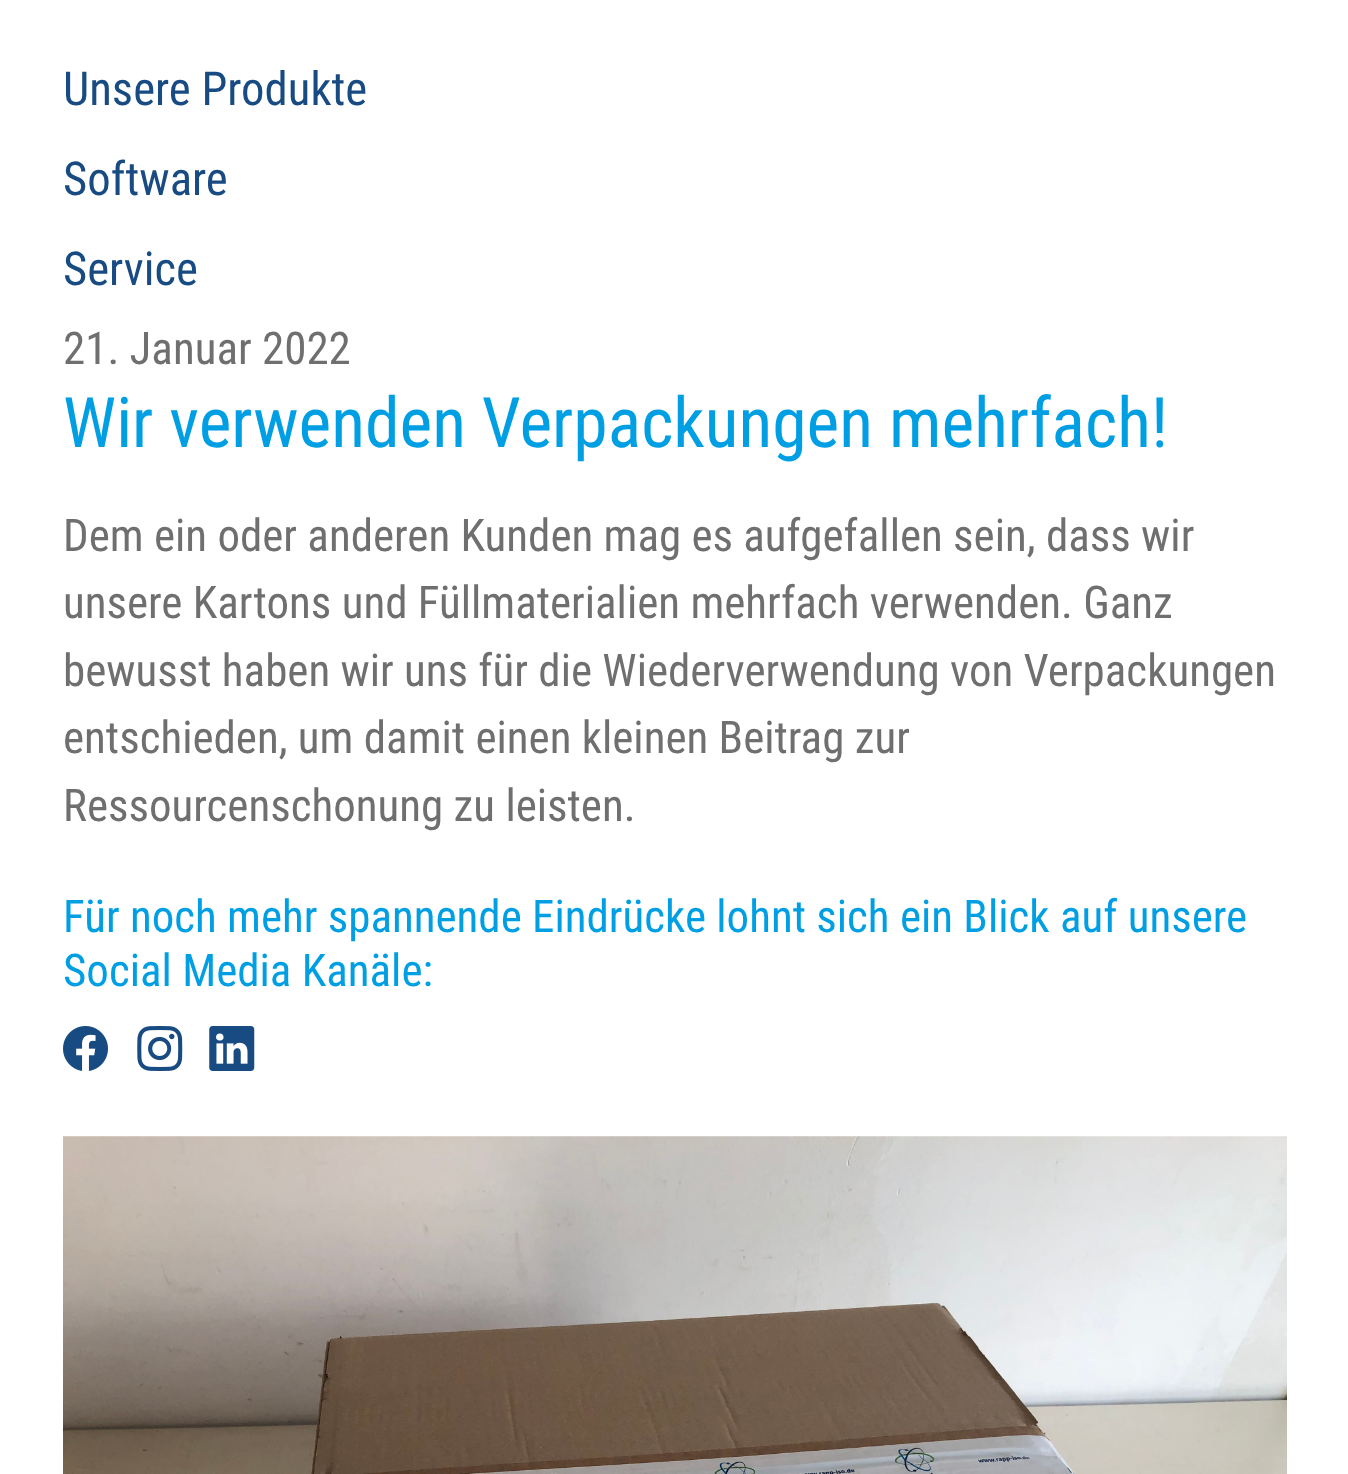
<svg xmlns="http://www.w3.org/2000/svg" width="1348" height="1474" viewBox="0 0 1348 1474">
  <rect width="100%" height="100%" fill="#fff"/>
  <image x="63" y="1026" width="45" height="45" href="img/1.png"/>
  <image x="137" y="1026" width="46" height="45" href="img/2.png"/>
  <image x="209" y="1026" width="46" height="45" href="img/3.png"/>
  <image x="63" y="1136" width="1224" height="338" href="img/4.png"/>
  <g font-family="Roboto Condensed" font-size="46.75" fill="#184b82">
    <text x="63" y="105">Unsere Produkte</text>
    <text x="63" y="195">Software</text>
    <text x="63" y="285">Service</text>
  </g>
  <text x="63" y="364" font-family="Roboto Condensed" font-size="45" fill="#6f6f6f">21. Januar 2022</text>
  <text x="63" y="447" font-family="Roboto Condensed" font-size="69.75" fill="#009fe3">Wir verwenden Verpackungen mehrfach!</text>
  <g font-family="Roboto Condensed" font-size="45" fill="#6f6f6f">
    <text x="63" y="551">Dem ein oder anderen Kunden mag es aufgefallen sein, dass wir</text>
    <text x="63" y="618">unsere Kartons und Füllmaterialien mehrfach verwenden. Ganz</text>
    <text x="63" y="686">bewusst haben wir uns für die Wiederverwendung von Verpackungen</text>
    <text x="63" y="753">entschieden, um damit einen kleinen Beitrag zur</text>
    <text x="63" y="821">Ressourcenschonung zu leisten.</text>
  </g>
  <g font-family="Roboto Condensed" font-size="45" fill="#009fe3">
    <text x="63" y="932">Für noch mehr spannende Eindrücke lohnt sich ein Blick auf unsere</text>
    <text x="63" y="986">Social Media Kanäle:</text>
  </g>
</svg>
